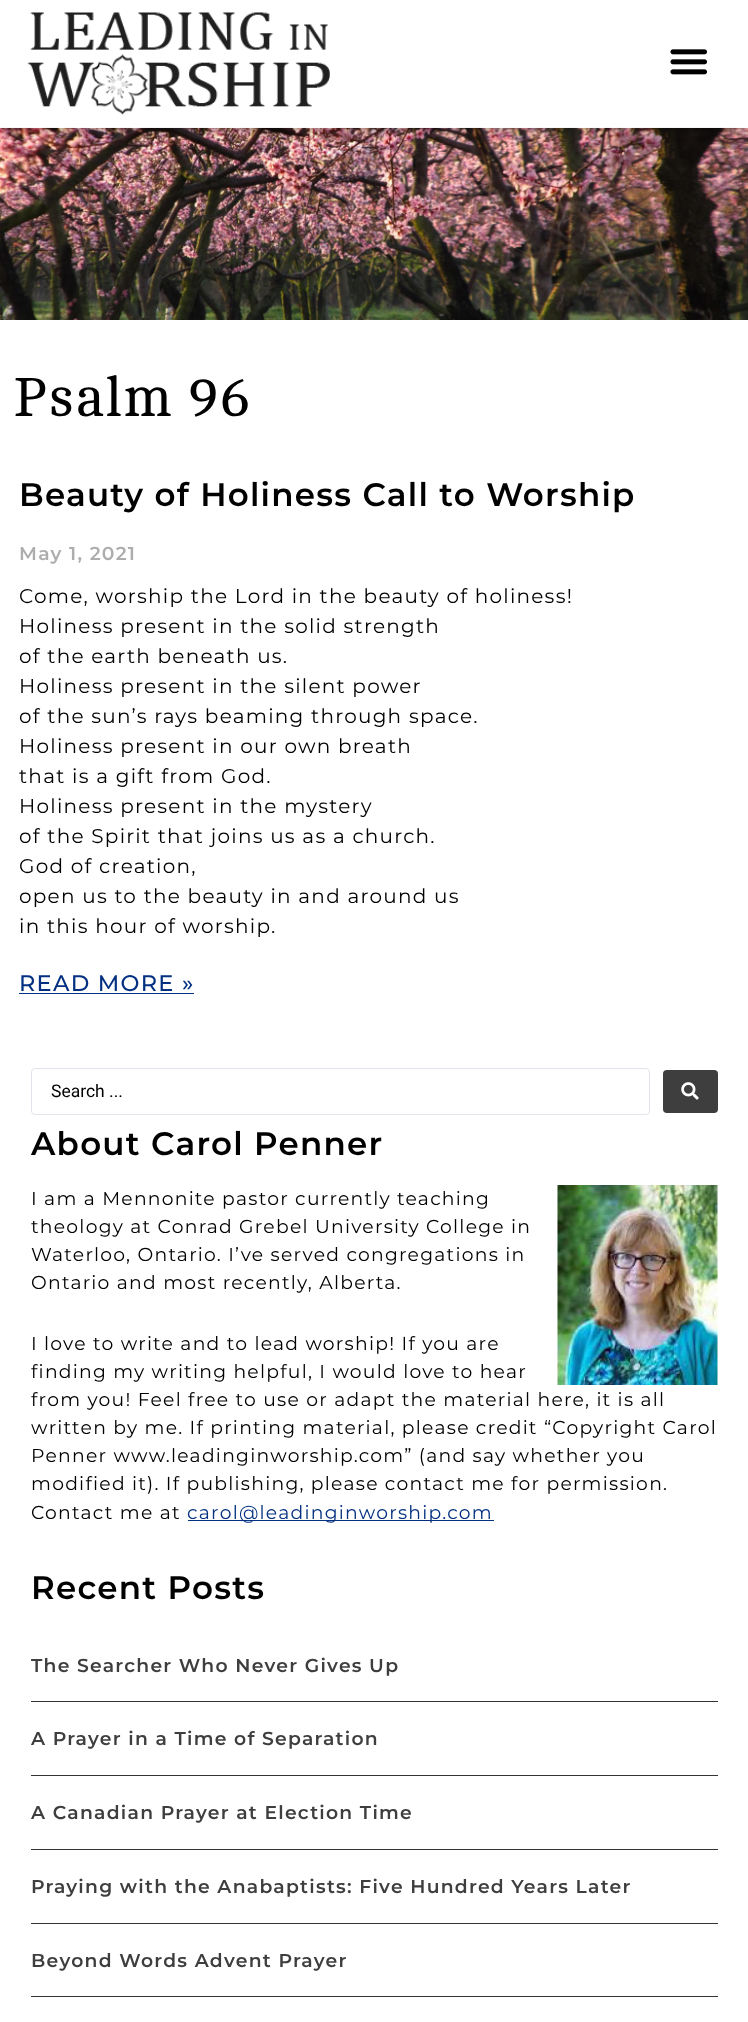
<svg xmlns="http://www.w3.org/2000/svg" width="748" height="2022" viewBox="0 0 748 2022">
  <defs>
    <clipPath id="clip1"><path d="M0 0H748V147H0ZM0 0H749V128H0Z" clip-rule="evenodd"/></clipPath>
  </defs>
  <rect width="100%" height="100%" fill="#fff"/>
  <image x="0" y="127" width="748" height="193" href="img/3.png"/>
  <g clip-path="url(#clip1)">
    <path d="M0 0h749v128H0z" fill="#00000080" filter="blur(6px)"/>
  </g>
  <path d="M0 127h748v1H0z" fill="#ffffffe8"/>
  <image x="27" y="12" width="303" height="103" href="img/1.png"/>
  <image x="670" y="49" width="37" height="26" href="img/2.png"/>
  <path d="M19 993h175v1H19z" fill="#033081"/>
  <rect x="31.5" y="1068.5" width="618" height="46" rx="3.5" fill="none" stroke="#e1e5eb"/>
  <rect x="663" y="1070" width="55" height="43" rx="4" fill="#3e3e3e"/>
  <image x="681" y="1082" width="18" height="18" href="img/4.png"/>
  <image x="557" y="1185" width="161" height="200" href="img/5.png"/>
  <path d="M188 1520h306v1H188z" fill="#033081"/>
  <path d="M31 1701h687v1H31z" fill="#333"/>
  <path d="M31 1775h687v1H31z" fill="#333"/>
  <path d="M31 1849h687v1H31z" fill="#333"/>
  <path d="M31 1923h687v1H31z" fill="#333"/>
  <path d="M31 1996h687v1H31z" fill="#333"/>
  <text x="13" y="416" font-family="Cambo" font-size="56.25" letter-spacing="1.25" fill="#000">Psalm 96</text>
  <text x="19" y="506" font-family="Montserrat" font-size="32.5" font-weight="600" letter-spacing="1.25" fill="#000">Beauty of Holiness Call to Worship</text>
  <text x="19" y="560" font-family="Montserrat" font-size="18.75" font-weight="600" letter-spacing="1.25" fill="#adadad">May 1, 2021</text>
  <g font-family="Montserrat" font-size="20" letter-spacing="1.25" fill="#000">
    <text x="19" y="603">Come, worship the Lord in the beauty of holiness!</text>
    <text x="19" y="633">Holiness present in the solid strength</text>
    <text x="19" y="663">of the earth beneath us.</text>
    <text x="19" y="693">Holiness present in the silent power</text>
    <text x="19" y="723">of the sun’s rays beaming through space.</text>
    <text x="19" y="753">Holiness present in our own breath</text>
    <text x="19" y="783">that is a gift from God.</text>
    <text x="19" y="813">Holiness present in the mystery</text>
    <text x="19" y="843">of the Spirit that joins us as a church.</text>
    <text x="19" y="873">God of creation,</text>
    <text x="19" y="903">open us to the beauty in and around us</text>
    <text x="19" y="933">in this hour of worship.</text>
  </g>
  <text x="19" y="991" font-family="Montserrat" font-size="22.5" font-weight="500" letter-spacing="1.25" fill="#033081">READ MORE »</text>
  <text x="51" y="1097" font-family="Roboto" font-size="17.5" fill="#000">Search ...</text>
  <text x="31" y="1155" font-family="Montserrat" font-size="32.5" font-weight="600" letter-spacing="1.25" fill="#000">About Carol Penner</text>
  <g font-family="Montserrat" font-size="18.75" letter-spacing="1.25" fill="#000">
    <text x="31" y="1205">I am a Mennonite pastor currently teaching</text>
    <text x="31" y="1233">theology at Conrad Grebel University College in</text>
    <text x="31" y="1261">Waterloo, Ontario. I’ve served congregations in</text>
    <text x="31" y="1289">Ontario and most recently, Alberta.</text>
    <text x="31" y="1350">I love to write and to lead worship! If you are</text>
    <text x="31" y="1378">finding my writing helpful, I would love to hear</text>
    <text x="31" y="1406">from you! Feel free to use or adapt the material here, it is all</text>
    <text x="31" y="1434">written by me. If printing material, please credit “Copyright Carol</text>
    <text x="31" y="1462">Penner www.leadinginworship.com” (and say whether you</text>
    <text x="31" y="1490">modified it). If publishing, please contact me for permission.</text>
    <text x="31" y="1519">Contact me at</text>
  </g>
  <text x="187" y="1519" font-family="Montserrat" font-size="18.75" letter-spacing="1.25" fill="#033081">carol@leadinginworship.com</text>
  <text x="31" y="1599" font-family="Montserrat" font-size="32.5" font-weight="600" letter-spacing="1.25" fill="#000">Recent Posts</text>
  <g font-family="Montserrat" font-size="18.75" font-weight="600" letter-spacing="1.25" fill="#3e3e3e">
    <text x="31" y="1672">The Searcher Who Never Gives Up</text>
    <text x="31" y="1745">A Prayer in a Time of Separation</text>
    <text x="31" y="1819">A Canadian Prayer at Election Time</text>
    <text x="31" y="1893">Praying with the Anabaptists: Five Hundred Years Later</text>
    <text x="31" y="1967">Beyond Words Advent Prayer</text>
  </g>
</svg>
